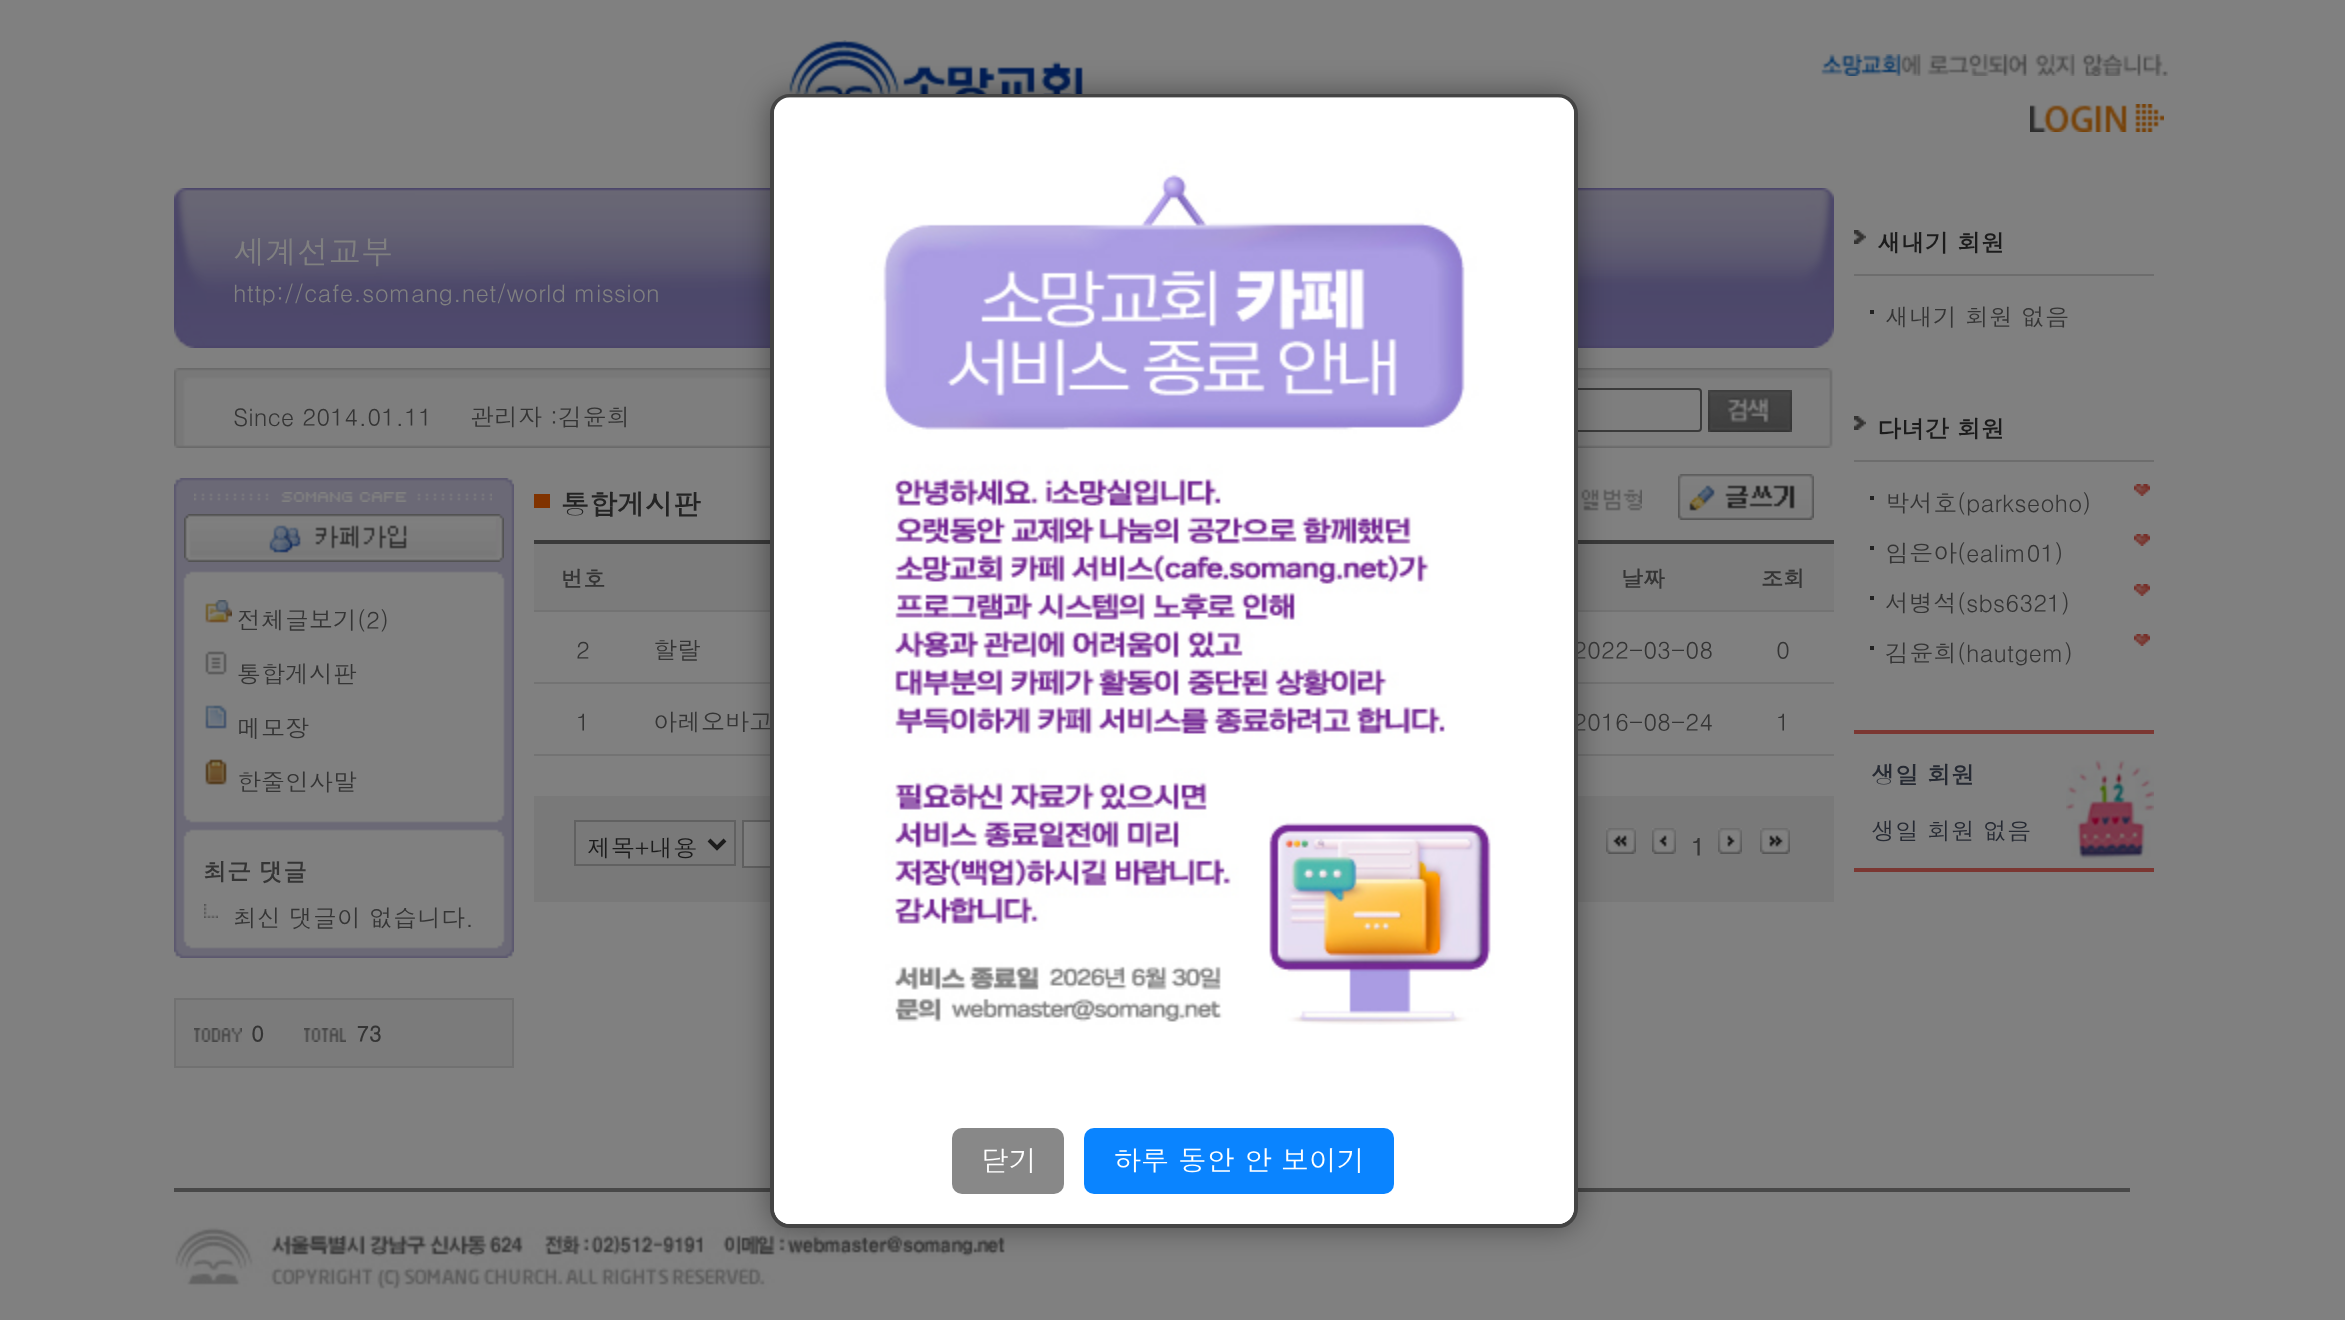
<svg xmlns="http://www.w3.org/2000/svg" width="2345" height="1320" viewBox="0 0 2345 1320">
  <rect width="100%" height="100%" fill="#808080"/>
  <image x="789" y="40" width="294" height="55" href="img/1.png"/>
  <image x="1821" y="54" width="347" height="22" href="img/2.png"/>
  <image x="2030" y="104" width="134" height="28" href="img/3.png"/>
  <image x="174" y="478" width="340" height="36" href="img/4.png"/>
  <image x="194" y="492" width="298" height="10" href="img/5.png"/>
  <image x="174" y="514" width="340" height="48" href="img/6.png"/>
  <image x="184" y="514" width="320" height="48" href="img/7.png"/>
  <image x="174" y="562" width="340" height="26" href="img/8.png"/>
  <image x="174" y="588" width="340" height="216" href="img/9.png"/>
  <image x="205" y="600" width="27" height="23" href="img/10.png"/>
  <image x="205" y="651" width="22" height="24" href="img/11.png"/>
  <image x="205" y="705" width="22" height="24" href="img/12.png"/>
  <image x="205" y="759" width="22" height="26" href="img/13.png"/>
  <image x="174" y="804" width="340" height="44" href="img/14.png"/>
  <image x="174" y="848" width="340" height="90" href="img/15.png"/>
  <image x="204" y="904" width="14" height="14" href="img/16.png"/>
  <image x="174" y="938" width="340" height="20" href="img/17.png"/>
  <path d="M175 999h338v68H175z" fill="#7b7b7b" stroke="#717171" stroke-width="2"/>
  <image x="194" y="1028" width="48" height="14" href="img/18.png"/>
  <image x="304" y="1028" width="42" height="14" href="img/19.png"/>
  <path d="M534 494h16v14H534z" fill="#803300"/>
  <path d="M534 540h1300v4H534z" fill="#3a3a3a"/>
  <image x="1578" y="486" width="64" height="28" href="img/20.png"/>
  <image x="1678" y="474" width="136" height="46" href="img/21.png"/>
  <path d="M534 544h236v66H534z" fill="#7b7b7b"/>
  <path d="M1578 544h256v66H1578z" fill="#7b7b7b"/>
  <path d="M1578 610h256v2H1578z" fill="#737373"/>
  <path d="M534 610h236v2H534z" fill="#737373"/>
  <path d="M534 682h236v2H534z" fill="#737373"/>
  <path d="M1578 682h256v2H1578z" fill="#737373"/>
  <path d="M534 754h236v2H534z" fill="#737373"/>
  <path d="M1578 754h256v2H1578z" fill="#737373"/>
  <path d="M534 796h1300v106H534z" fill="#797979"/>
  <path d="M575 821h160v44H575z" fill="none" stroke="#616161" stroke-width="2"/>
  <path d="M709 840L717 848L725 840" fill="none" stroke="#1c1c1c" stroke-width="4"/>
  <path d="M744 822h26v44H744z" fill="#808080"/>
  <path d="M743 821h286v46H743z" fill="none" stroke="#616161" stroke-width="2"/>
  <image x="1606" y="828" width="30" height="26" href="img/22.png"/>
  <image x="1652" y="828" width="24" height="26" href="img/23.png"/>
  <image x="1718" y="828" width="24" height="26" href="img/24.png"/>
  <image x="1760" y="828" width="30" height="26" href="img/25.png"/>
  <image x="1854" y="230" width="12" height="14" href="img/26.png"/>
  <path d="M1854 274h300v2H1854z" fill="#6d6d6d"/>
  <path d="M1870 310h4v4H1870z" fill="#222"/>
  <image x="1854" y="416" width="12" height="14" href="img/26.png"/>
  <path d="M1854 460h300v2H1854z" fill="#6d6d6d"/>
  <path d="M1870 496h4v4H1870z" fill="#222"/>
  <image x="2134" y="484" width="16" height="12" href="img/27.png"/>
  <path d="M1870 546h4v4H1870z" fill="#222"/>
  <image x="2134" y="534" width="16" height="12" href="img/27.png"/>
  <path d="M1870 596h4v4H1870z" fill="#222"/>
  <image x="2134" y="584" width="16" height="12" href="img/27.png"/>
  <path d="M1870 646h4v4H1870z" fill="#222"/>
  <image x="2134" y="634" width="16" height="12" href="img/27.png"/>
  <image x="2066" y="760" width="88" height="99" href="img/28.png"/>
  <path d="M1854 730h300v4H1854z" fill="#7b3732"/>
  <path d="M1854 868h300v4H1854z" fill="#7b3732"/>
  <image x="174" y="188" width="1660" height="160" href="img/29.png"/>
  <image x="174" y="368" width="1659" height="80" href="img/30.png"/>
  <rect x="1455" y="389" width="246" height="42" rx="3" fill="none" stroke="#3b3b3b" stroke-width="2"/>
  <image x="1708" y="390" width="84" height="42" href="img/31.png"/>
  <path d="M174 1188h1956v4H174z" fill="#484848"/>
  <image x="175" y="1227" width="830" height="62" href="img/32.png"/>
  <rect x="770" y="94" width="808" height="1134" rx="20" fill="#00000066" filter="blur(15px)"/>
  <g font-family="Dotum" font-size="24" fill="#353535">
    <text x="237" y="629">전체글보기(2)</text>
    <text x="237" y="683">통합게시판</text>
    <text x="237" y="737">메모장</text>
    <text x="237" y="791">한줄인사말</text>
  </g>
  <text x="203" y="881" font-family="Dotum" font-size="24" font-weight="bold" fill="#353535">최근 댓글</text>
  <text x="233" y="927" font-family="Dotum" font-size="24" fill="#353535">최신 댓글이 없습니다.</text>
  <g font-family="Dotum" font-size="22" font-weight="bold" fill="#353535">
    <text x="251" y="1042">0</text>
    <text x="356" y="1042">73</text>
  </g>
  <text x="561" y="515" font-family="Dotum" font-size="28" font-weight="bold" fill="#242424">통합게시판</text>
  <g font-family="Dotum" font-size="22" font-weight="bold" fill="#353535">
    <text x="561" y="587">번호</text>
    <text x="1621" y="587">날짜</text>
    <text x="1761" y="587">조회</text>
  </g>
  <g font-family="Dotum" font-size="24" fill="#353535">
    <text x="576" y="659">2</text>
    <text x="653" y="659">할랄</text>
    <text x="1573" y="659">2022-03-08</text>
    <text x="1776" y="659">0</text>
    <text x="576" y="731">1</text>
    <text x="653" y="731">아레오바고</text>
    <text x="1573" y="731">2016-08-24</text>
    <text x="1776" y="731">1</text>
  </g>
  <text x="587" y="857" font-family="Dotum" font-size="24" fill="#1c1c1c">제목+내용</text>
  <text x="1691" y="856" font-family="Dotum" font-size="24" font-weight="bold" fill="#353535">1</text>
  <text x="1877" y="252" font-family="Dotum" font-size="24" font-weight="bold" fill="#1c1c1c">새내기 회원</text>
  <text x="1885" y="326" font-family="Dotum" font-size="24" fill="#353535">새내기 회원 없음</text>
  <text x="1877" y="438" font-family="Dotum" font-size="24" font-weight="bold" fill="#1c1c1c">다녀간 회원</text>
  <g font-family="Dotum" font-size="24" fill="#353535">
    <text x="1885" y="512">박서호(parkseoho)</text>
    <text x="1885" y="562">임은아(ealim01)</text>
    <text x="1885" y="612">서병석(sbs6321)</text>
    <text x="1885" y="662">김윤희(hautgem)</text>
  </g>
  <text x="1871" y="784" font-family="Dotum" font-size="24" font-weight="bold" fill="#262a33">생일 회원</text>
  <text x="1871" y="840" font-family="Dotum" font-size="24" fill="#262a33">생일 회원 없음</text>
  <text x="233" y="264" font-family="Dotum" font-size="32" fill="#808080">세계선교부</text>
  <text x="233" y="302" font-family="Dotum" font-size="24" fill="#808080">http://cafe.somang.net/world mission</text>
  <g font-family="Dotum" font-size="24" fill="#353535">
    <text x="233" y="426">Since 2014.01.11</text>
    <text x="470" y="426">관리자 :김윤희</text>
  </g>
  <rect x="772" y="96" width="804" height="1130" rx="18" fill="#fff" stroke="#444" stroke-width="4"/>
  <image x="774" y="97" width="800" height="928" href="img/33.png"/>
  <path d="M774 1098H1574V1208C1574 1217 1567 1224 1558 1224H790C781 1224 774 1217 774 1208Z" fill="#fff"/>
  <rect x="952" y="1128" width="112" height="66" rx="10" fill="#888"/>
  <text x="981" y="1171" font-family="Dotum" font-size="28" fill="#fff">닫기</text>
  <rect x="1084" y="1128" width="310" height="66" rx="10" fill="#0a84ff"/>
  <text x="1113" y="1171" font-family="Dotum" font-size="28" fill="#fff">하루 동안 안 보이기</text>
</svg>
